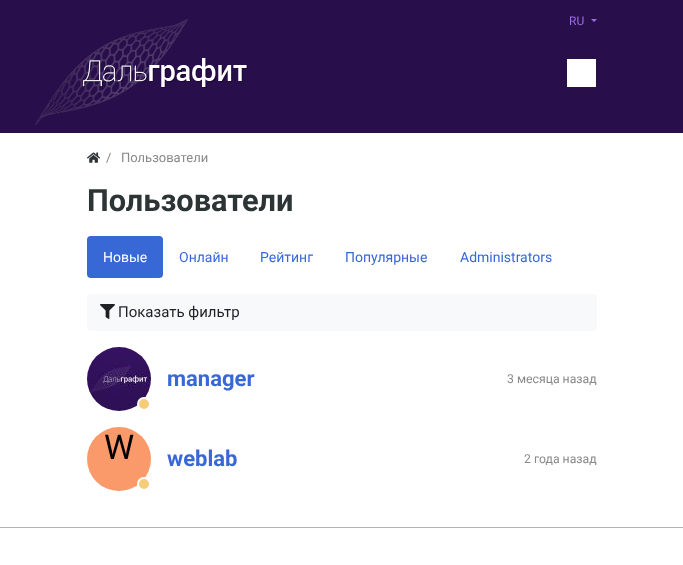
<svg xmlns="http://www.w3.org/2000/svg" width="683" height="565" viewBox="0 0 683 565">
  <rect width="100%" height="100%" fill="#fff"/>
  <path d="M0 0h683v133H0z" fill="#280e4b"/>
  <path d="M591 19H597L594 22Z" fill="#9c6ed9"/>
  <image x="35" y="18" width="213" height="107" href="img/1.png"/>
  <rect x="566.5" y="54.5" width="30" height="37" rx="3.5" fill="none" stroke="#251041"/>
  <path d="M567 59h29v28H567z" fill="#fff"/>
  <image x="87" y="152" width="13" height="11" href="img/2.png"/>
  <rect x="87" y="236" width="76" height="42" rx="4" fill="#3867d6"/>
  <rect x="87" y="294" width="510" height="37" rx="4" fill="#f8f9fa"/>
  <image x="100" y="304" width="15" height="15" href="img/3.png"/>
  <image x="87" y="347" width="64" height="64" href="img/4.png"/>
  <circle cx="144" cy="404" r="6" fill="#f5cd79" stroke="#fff" stroke-width="2"/>
  <circle cx="119" cy="459" r="32" fill="#fa9a6b"/>
  <circle cx="144" cy="484" r="6" fill="#f5cd79" stroke="#fff" stroke-width="2"/>
  <path d="M0 527h683v1H0z" fill="#b3b3b3"/>
  <text x="569" y="25" font-family="Roboto" font-size="12" fill="#9c6ed9">RU</text>
  <g font-family="Roboto" font-size="13" fill="#888">
    <text x="106" y="162">/</text>
    <text x="121" y="162">Пользователи</text>
  </g>
  <text x="87" y="211" font-family="Roboto" font-size="30.75" font-weight="bold" fill="#2d3436">Пользователи</text>
  <text x="103" y="262" font-family="Roboto" font-size="14" fill="#fff">Новые</text>
  <g font-family="Roboto" font-size="14" fill="#3867d6">
    <text x="179" y="262">Онлайн</text>
    <text x="260" y="262">Рейтинг</text>
    <text x="345" y="262">Популярные</text>
    <text x="460" y="262">Administrators</text>
  </g>
  <text x="118" y="317" font-family="Roboto" font-size="15" fill="#1e2224">Показать фильтр</text>
  <text x="167" y="386" font-family="Roboto" font-size="22" font-weight="bold" fill="#3867d6">manager</text>
  <text x="507" y="383" font-family="Roboto" font-size="12.25" fill="#888">3 месяца назад</text>
  <text x="104" y="459" font-family="Roboto" font-size="34" fill="#000">W</text>
  <text x="167" y="466" font-family="Roboto" font-size="22" font-weight="bold" fill="#3867d6">weblab</text>
  <text x="524" y="463" font-family="Roboto" font-size="12.25" fill="#888">2 года назад</text>
</svg>
